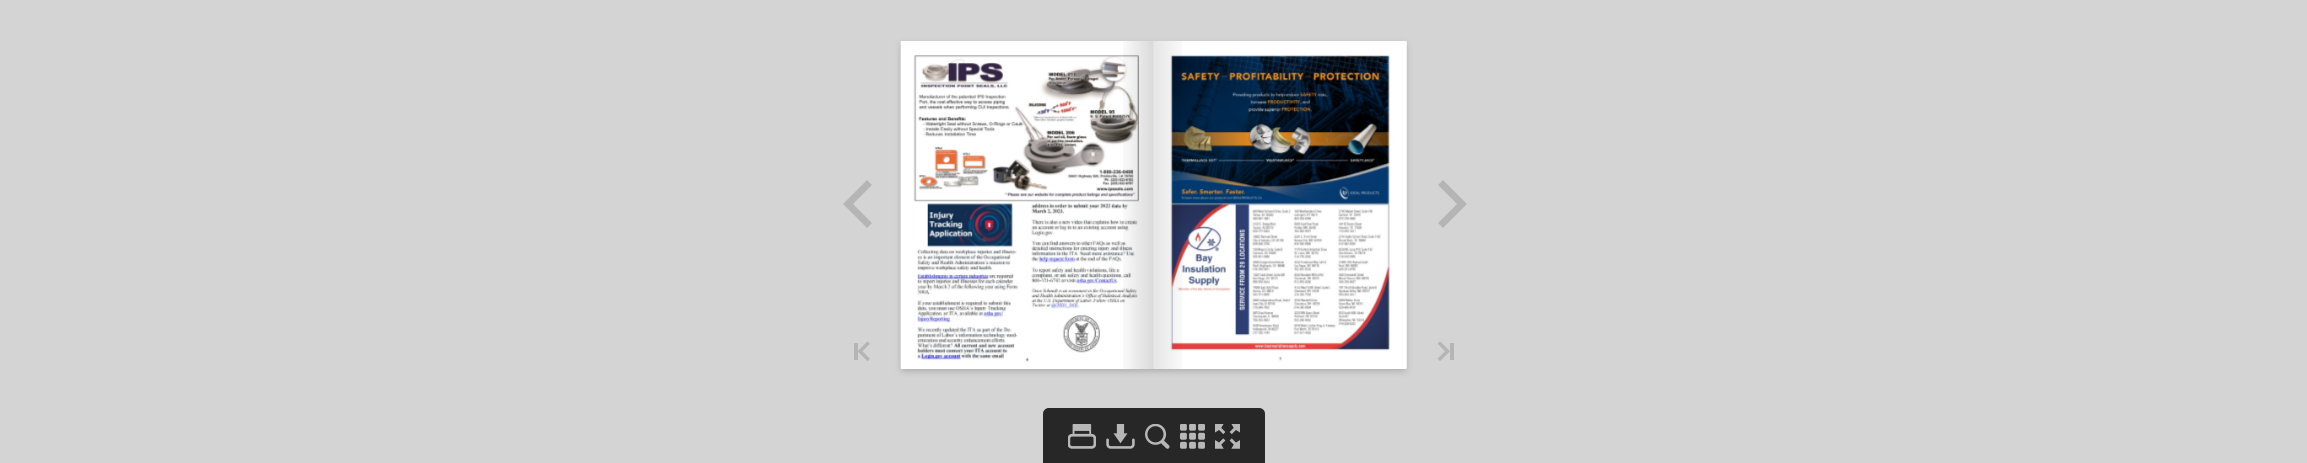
<svg xmlns="http://www.w3.org/2000/svg" width="2307" height="463" viewBox="0 0 2307 463">
  <defs>
    <linearGradient id="g1" gradientUnits="userSpaceOnUse" x1="1118" y1="205" x2="1154" y2="205"><stop offset="0" stop-color="#000" stop-opacity="0"/><stop offset="1" stop-color="#000" stop-opacity="0.15"/></linearGradient>
    <linearGradient id="g2" gradientUnits="userSpaceOnUse" x1="1154" y1="205" x2="1190" y2="205"><stop offset="0" stop-color="#000" stop-opacity="0.1"/><stop offset="1" stop-color="#000" stop-opacity="0"/></linearGradient>
  </defs>
  <rect width="100%" height="100%" fill="#d4d4d4"/>
  <path d="M843 204L867 228L872 223L853 204L872 185L867 180Z" fill="#b5b5b5"/>
  <path d="M901 44h505v327H901z" fill="#aaa" filter="blur(3px)"/>
  <path d="M901 41h505v328H901z" fill="#fff"/>
  <image x="900" y="41" width="239" height="328" href="img/1.png"/>
  <path d="M1123 41h31v328H1123z" fill="url(#g1)"/>
  <image x="1153" y="41" width="254" height="328" href="img/2.png"/>
  <path d="M1154 41h28v328H1154z" fill="url(#g2)"/>
  <path d="M1467 204L1443 228L1438 223L1457 204L1438 185L1443 180Z" fill="#b5b5b5"/>
  <image x="854" y="341" width="16" height="20" href="img/3.png"/>
  <image x="1437" y="341" width="17" height="20" href="img/4.png"/>
  <path d="M1049 408H1259C1262.5 408 1265 410.5 1265 414V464H1043V414C1043 410.5 1045.5 408 1049 408Z" fill="#272727"/>
  <image x="1068" y="424" width="28" height="25" href="img/5.png"/>
  <image x="1106" y="424" width="29" height="25" href="img/6.png"/>
  <image x="1145" y="424" width="25" height="25" href="img/7.png"/>
  <image x="1180" y="424" width="25" height="25" href="img/8.png"/>
  <image x="1215" y="424" width="25" height="25" href="img/9.png"/>
</svg>
